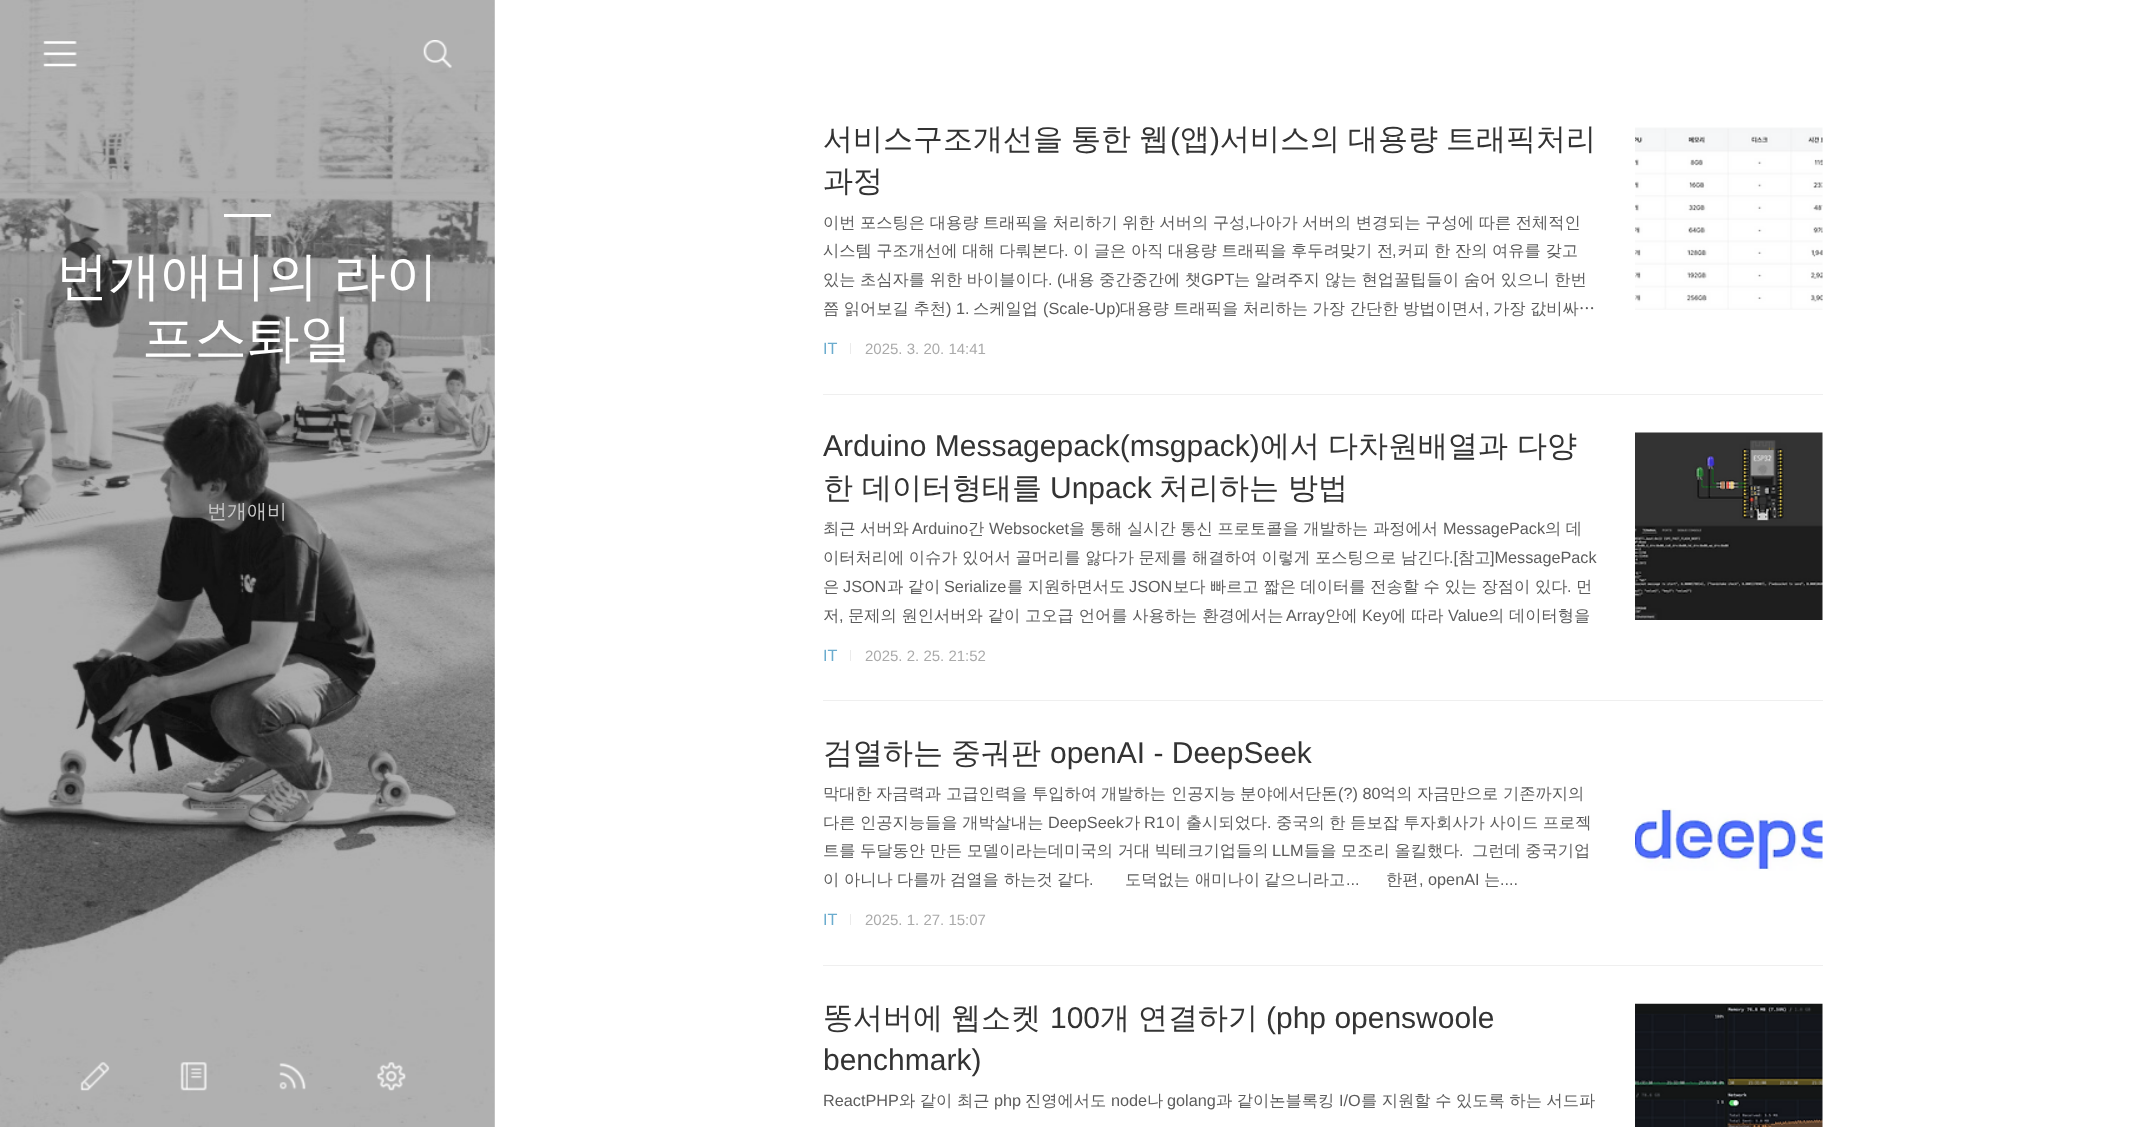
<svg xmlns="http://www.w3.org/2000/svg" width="2151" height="1127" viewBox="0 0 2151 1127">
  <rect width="100%" height="100%" fill="#fff"/>
  <image x="0" y="0" width="495" height="1127" href="img/3.png"/>
  <image x="43" y="41" width="34" height="26" href="img/1.png"/>
  <image x="423" y="40" width="29" height="28" href="img/2.png"/>
  <path d="M224 214h47v3H224z" fill="#fff"/>
  <image x="80" y="1062" width="30" height="29" href="img/4.png"/>
  <image x="180" y="1062" width="27" height="29" href="img/5.png"/>
  <image x="279" y="1063" width="27" height="27" href="img/6.png"/>
  <image x="376" y="1062" width="30" height="29" href="img/7.png"/>
  <path d="M823 394h1000v1H823z" fill="#efefef"/>
  <image x="1635" y="127" width="188" height="183" href="img/8.png"/>
  <path d="M850 343h1v11H850z" fill="#ebebeb"/>
  <path d="M823 700h1000v1H823z" fill="#efefef"/>
  <image x="1635" y="432" width="188" height="188" href="img/9.png"/>
  <path d="M850 650h1v11H850z" fill="#ebebeb"/>
  <path d="M823 965h1000v1H823z" fill="#efefef"/>
  <image x="1635" y="808" width="188" height="63" href="img/10.png"/>
  <path d="M850 914h1v11H850z" fill="#ebebeb"/>
  <image x="1635" y="1003" width="188" height="124" href="img/11.png"/>
  <g font-family="WenQuanYi Zen Hei" font-size="52.5" font-weight="500" fill="#fff">
    <text x="56" y="294" word-spacing="-1">번개애비의 라이</text>
    <text x="142" y="356">프스톼일</text>
  </g>
  <text x="207" y="518" font-family="WenQuanYi Zen Hei" font-size="20" font-weight="500" fill="#c6c6c6">번개애비</text>
  <text x="823" y="149" word-spacing="-1" font-family="WenQuanYi Zen Hei" font-size="30" font-weight="500" fill="#333">서비스구조개선을 통한 웹</text>
  <text x="1170" y="149" font-family="Liberation Sans" font-size="30" fill="#333">(</text>
  <text x="1180" y="149" font-family="WenQuanYi Zen Hei" font-size="30" font-weight="500" fill="#333">앱</text>
  <text x="1210" y="149" font-family="Liberation Sans" font-size="30" fill="#333">)</text>
  <g font-family="WenQuanYi Zen Hei" font-size="30" font-weight="500" fill="#333">
    <text x="1220" y="149" word-spacing="-1">서비스의 대용량 트래픽처리</text>
    <text x="823" y="191">과정</text>
  </g>
  <text x="823" y="228" word-spacing="-0.25" font-family="WenQuanYi Zen Hei" font-size="16.25" font-weight="500" fill="#5c5c5c">이번 포스팅은 대용량 트래픽을 처리하기 위한 서버의 구성</text>
  <text x="1245" y="228" font-family="Liberation Sans" font-size="16.25" fill="#5c5c5c">,</text>
  <g font-family="WenQuanYi Zen Hei" font-size="16.25" font-weight="500" fill="#5c5c5c">
    <text x="1249" y="228" word-spacing="-0.25">나아가 서버의 변경되는 구성에 따른 전체적인</text>
    <text x="823" y="256" word-spacing="-0.25">시스템 구조개선에 대해 다뤄본다</text>
  </g>
  <text x="1064" y="256" font-family="Liberation Sans" font-size="16.25" fill="#5c5c5c">.</text>
  <text x="1073" y="256" word-spacing="-0.25" font-family="WenQuanYi Zen Hei" font-size="16.25" font-weight="500" fill="#5c5c5c">이 글은 아직 대용량 트래픽을 후두려맞기 전</text>
  <text x="1392" y="256" font-family="Liberation Sans" font-size="16.25" fill="#5c5c5c">,</text>
  <g font-family="WenQuanYi Zen Hei" font-size="16.25" font-weight="500" fill="#5c5c5c">
    <text x="1397" y="256" word-spacing="-0.25">커피 한 잔의 여유를 갖고</text>
    <text x="823" y="285" word-spacing="-0.25">있는 초심자를 위한 바이블이다</text>
  </g>
  <text x="1048" y="285" font-family="Liberation Sans" font-size="16.25" fill="#5c5c5c">. (</text>
  <text x="1062" y="285" word-spacing="-0.25" font-family="WenQuanYi Zen Hei" font-size="16.25" font-weight="500" fill="#5c5c5c">내용 중간중간에 챗</text>
  <text x="1201" y="285" font-family="Liberation Sans" font-size="16.25" fill="#5c5c5c">GPT</text>
  <g font-family="WenQuanYi Zen Hei" font-size="16.25" font-weight="500" fill="#5c5c5c">
    <text x="1234" y="285" word-spacing="-0.25">는 알려주지 않는 현업꿀팁들이 숨어 있으니 한번</text>
    <text x="823" y="314" word-spacing="-0.25">쯤 읽어보길 추천</text>
  </g>
  <text x="946" y="314" font-family="Liberation Sans" font-size="16.25" fill="#5c5c5c">) 1.</text>
  <text x="973" y="314" font-family="WenQuanYi Zen Hei" font-size="16.25" font-weight="500" fill="#5c5c5c">스케일업</text>
  <text x="1043" y="314" font-family="Liberation Sans" font-size="16.25" fill="#5c5c5c">(Scale-Up)</text>
  <text x="1120" y="314" word-spacing="-0.25" font-family="WenQuanYi Zen Hei" font-size="16.25" font-weight="500" fill="#5c5c5c">대용량 트래픽을 처리하는 가장 간단한 방법이면서</text>
  <text x="1485" y="314" font-family="Liberation Sans" font-size="16.25" fill="#5c5c5c">,</text>
  <text x="1493" y="314" word-spacing="-0.25" font-family="WenQuanYi Zen Hei" font-size="16.25" font-weight="500" fill="#5c5c5c">가장 값비싸…</text>
  <text x="823" y="354" font-family="Liberation Sans" font-size="16.25" fill="#6bacce">IT</text>
  <text x="865" y="354" font-family="Liberation Sans" font-size="15" fill="#aaa">2025. 3. 20. 14:41</text>
  <text x="823" y="456" font-family="Liberation Sans" font-size="30" fill="#333">Arduino Messagepack(msgpack)</text>
  <g font-family="WenQuanYi Zen Hei" font-size="30" font-weight="500" fill="#333">
    <text x="1260" y="456">에서</text>
    <text x="1328" y="456">다차원배열과</text>
    <text x="1517" y="456">다양</text>
    <text x="823" y="498">한 데이터형태를</text>
  </g>
  <text x="1050" y="498" font-family="Liberation Sans" font-size="30" fill="#333">Unpack</text>
  <text x="1159" y="498" font-family="WenQuanYi Zen Hei" font-size="30" font-weight="500" fill="#333">처리하는 방법</text>
  <text x="823" y="534" word-spacing="-0.25" font-family="WenQuanYi Zen Hei" font-size="16.25" font-weight="500" fill="#5c5c5c">최근 서버와</text>
  <text x="912" y="534" font-family="Liberation Sans" font-size="16.25" fill="#5c5c5c">Arduino</text>
  <text x="968" y="534" font-family="WenQuanYi Zen Hei" font-size="16.25" font-weight="500" fill="#5c5c5c">간</text>
  <text x="989" y="534" font-family="Liberation Sans" font-size="16.25" fill="#5c5c5c">Websocket</text>
  <text x="1069" y="534" word-spacing="-0.25" font-family="WenQuanYi Zen Hei" font-size="16.25" font-weight="500" fill="#5c5c5c">을 통해 실시간 통신 프로토콜을 개발하는 과정에서</text>
  <text x="1443" y="534" font-family="Liberation Sans" font-size="16.25" fill="#5c5c5c">MessagePack</text>
  <g font-family="WenQuanYi Zen Hei" font-size="16.25" font-weight="500" fill="#5c5c5c">
    <text x="1545" y="534" word-spacing="-0.25">의 데</text>
    <text x="823" y="563" word-spacing="-0.25">이터처리에 이슈가 있어서 골머리를 앓다가 문제를 해결하여 이렇게 포스팅으로 남긴다</text>
  </g>
  <text x="1449" y="563" font-family="Liberation Sans" font-size="16.25" fill="#5c5c5c">.[</text>
  <text x="1458" y="563" font-family="WenQuanYi Zen Hei" font-size="16.25" font-weight="500" fill="#5c5c5c">참고</text>
  <text x="1490" y="563" font-family="Liberation Sans" font-size="16.25" fill="#5c5c5c">]MessagePack</text>
  <text x="823" y="592" font-family="WenQuanYi Zen Hei" font-size="16.25" font-weight="500" fill="#5c5c5c">은</text>
  <text x="843" y="592" font-family="Liberation Sans" font-size="16.25" fill="#5c5c5c">JSON</text>
  <text x="887" y="592" word-spacing="-0.25" font-family="WenQuanYi Zen Hei" font-size="16.25" font-weight="500" fill="#5c5c5c">과 같이</text>
  <text x="944" y="592" font-family="Liberation Sans" font-size="16.25" fill="#5c5c5c">Serialize</text>
  <text x="1007" y="592" word-spacing="-0.25" font-family="WenQuanYi Zen Hei" font-size="16.25" font-weight="500" fill="#5c5c5c">를 지원하면서도</text>
  <text x="1129" y="592" font-family="Liberation Sans" font-size="16.25" fill="#5c5c5c">JSON</text>
  <text x="1173" y="592" word-spacing="-0.25" font-family="WenQuanYi Zen Hei" font-size="16.25" font-weight="500" fill="#5c5c5c">보다 빠르고 짧은 데이터를 전송할 수 있는 장점이 있다</text>
  <text x="1567" y="592" font-family="Liberation Sans" font-size="16.25" fill="#5c5c5c">.</text>
  <g font-family="WenQuanYi Zen Hei" font-size="16.25" font-weight="500" fill="#5c5c5c">
    <text x="1576" y="592">먼</text>
    <text x="823" y="621">저</text>
  </g>
  <text x="839" y="621" font-family="Liberation Sans" font-size="16.25" fill="#5c5c5c">,</text>
  <text x="848" y="621" font-family="WenQuanYi Zen Hei" font-size="16.25" font-weight="500" fill="#5c5c5c">문제의 원인서버와 같이 고오급 언어를 사용하는 환경에서는</text>
  <text x="1286" y="621" font-family="Liberation Sans" font-size="16.25" fill="#5c5c5c">Array</text>
  <text x="1325" y="621" font-family="WenQuanYi Zen Hei" font-size="16.25" font-weight="500" fill="#5c5c5c">안에</text>
  <text x="1362" y="621" font-family="Liberation Sans" font-size="16.25" fill="#5c5c5c">Key</text>
  <text x="1390" y="621" font-family="WenQuanYi Zen Hei" font-size="16.25" font-weight="500" fill="#5c5c5c">에 따라</text>
  <text x="1448" y="621" font-family="Liberation Sans" font-size="16.25" fill="#5c5c5c">Value</text>
  <text x="1488" y="621" font-family="WenQuanYi Zen Hei" font-size="16.25" font-weight="500" fill="#5c5c5c">의 데이터형을</text>
  <text x="823" y="661" font-family="Liberation Sans" font-size="16.25" fill="#6bacce">IT</text>
  <text x="865" y="661" font-family="Liberation Sans" font-size="15" fill="#aaa">2025. 2. 25. 21:52</text>
  <g font-family="WenQuanYi Zen Hei" font-size="30" font-weight="500" fill="#333">
    <text x="823" y="763">검열하는</text>
    <text x="951" y="763">중궈판</text>
  </g>
  <text x="1050" y="763" font-family="Liberation Sans" font-size="30" fill="#333">openAI - DeepSeek</text>
  <g font-family="WenQuanYi Zen Hei" font-size="16.25" font-weight="500" fill="#5c5c5c">
    <text x="823" y="799">막대한</text>
    <text x="876" y="799">자금력과</text>
    <text x="946" y="799">고급인력을</text>
    <text x="1032" y="799">투입하여</text>
    <text x="1101" y="799">개발하는</text>
    <text x="1171" y="799">인공지능</text>
    <text x="1240" y="799">분야에서단돈</text>
  </g>
  <text x="1338" y="799" font-family="Liberation Sans" font-size="16.25" fill="#5c5c5c">(?) 80</text>
  <g font-family="WenQuanYi Zen Hei" font-size="16.25" font-weight="500" fill="#5c5c5c">
    <text x="1380" y="799">억의</text>
    <text x="1417" y="799">자금만으로</text>
    <text x="1503" y="799">기존까지의</text>
    <text x="823" y="828" word-spacing="-0.25">다른 인공지능들을 개박살내는</text>
  </g>
  <text x="1048" y="828" font-family="Liberation Sans" font-size="16.25" fill="#5c5c5c">DeepSeek</text>
  <text x="1124" y="828" font-family="WenQuanYi Zen Hei" font-size="16.25" font-weight="500" fill="#5c5c5c">가</text>
  <text x="1144" y="828" font-family="Liberation Sans" font-size="16.25" fill="#5c5c5c">R1</text>
  <text x="1165" y="828" word-spacing="-0.25" font-family="WenQuanYi Zen Hei" font-size="16.25" font-weight="500" fill="#5c5c5c">이 출시되었다</text>
  <text x="1267" y="828" font-family="Liberation Sans" font-size="16.25" fill="#5c5c5c">.</text>
  <g font-family="WenQuanYi Zen Hei" font-size="16.25" font-weight="500" fill="#5c5c5c">
    <text x="1276" y="828" word-spacing="-0.25">중국의 한 듣보잡 투자회사가 사이드 프로젝</text>
    <text x="823" y="856" word-spacing="-0.25">트를 두달동안 만든 모델이라는데미국의 거대 빅테크기업들의</text>
  </g>
  <text x="1272" y="856" font-family="Liberation Sans" font-size="16.25" fill="#5c5c5c">LLM</text>
  <text x="1304" y="856" word-spacing="-0.25" font-family="WenQuanYi Zen Hei" font-size="16.25" font-weight="500" fill="#5c5c5c">들을 모조리 올킬했다</text>
  <text x="1459" y="856" font-family="Liberation Sans" font-size="16.25" fill="#5c5c5c">.</text>
  <g font-family="WenQuanYi Zen Hei" font-size="16.25" font-weight="500" fill="#5c5c5c">
    <text x="1472" y="856" word-spacing="-0.25">그런데 중국기업</text>
    <text x="823" y="885">이</text>
    <text x="844" y="885">아니나</text>
    <text x="897" y="885">다를까</text>
    <text x="950" y="885">검열을</text>
    <text x="1004" y="885">하는것</text>
    <text x="1057" y="885">같다</text>
  </g>
  <text x="1089" y="885" font-family="Liberation Sans" font-size="16.25" fill="#5c5c5c">.</text>
  <g font-family="WenQuanYi Zen Hei" font-size="16.25" font-weight="500" fill="#5c5c5c">
    <text x="1125" y="885">도덕없는</text>
    <text x="1195" y="885">애미나이</text>
    <text x="1264" y="885">같으니라고</text>
  </g>
  <text x="1346" y="885" font-family="Liberation Sans" font-size="16.25" fill="#5c5c5c">...</text>
  <text x="1386" y="885" font-family="WenQuanYi Zen Hei" font-size="16.25" font-weight="500" fill="#5c5c5c">한편</text>
  <text x="1419" y="885" font-family="Liberation Sans" font-size="16.25" fill="#5c5c5c">, openAI</text>
  <text x="1484" y="885" font-family="WenQuanYi Zen Hei" font-size="16.25" font-weight="500" fill="#5c5c5c">는</text>
  <text x="1500" y="885" font-family="Liberation Sans" font-size="16.25" fill="#5c5c5c">....</text>
  <text x="823" y="925" font-family="Liberation Sans" font-size="16.25" fill="#6bacce">IT</text>
  <text x="865" y="925" font-family="Liberation Sans" font-size="15" fill="#aaa">2025. 1. 27. 15:07</text>
  <g font-family="WenQuanYi Zen Hei" font-size="30" font-weight="500" fill="#333">
    <text x="823" y="1028">똥서버에</text>
    <text x="951" y="1028">웹소켓</text>
  </g>
  <text x="1050" y="1028" font-family="Liberation Sans" font-size="30" fill="#333">100</text>
  <g font-family="WenQuanYi Zen Hei" font-size="30" font-weight="500" fill="#333">
    <text x="1100" y="1028">개</text>
    <text x="1138" y="1028">연결하기</text>
  </g>
  <g font-family="Liberation Sans" font-size="30" fill="#333">
    <text x="1266" y="1028">(php openswoole</text>
    <text x="823" y="1070">benchmark)</text>
  </g>
  <text x="823" y="1106" font-family="Liberation Sans" font-size="16.25" fill="#5c5c5c">ReactPHP</text>
  <text x="899" y="1106" word-spacing="-0.25" font-family="WenQuanYi Zen Hei" font-size="16.25" font-weight="500" fill="#5c5c5c">와 같이 최근</text>
  <text x="994" y="1106" font-family="Liberation Sans" font-size="16.25" fill="#5c5c5c">php</text>
  <text x="1025" y="1106" font-family="WenQuanYi Zen Hei" font-size="16.25" font-weight="500" fill="#5c5c5c">진영에서도</text>
  <text x="1111" y="1106" font-family="Liberation Sans" font-size="16.25" fill="#5c5c5c">node</text>
  <text x="1147" y="1106" font-family="WenQuanYi Zen Hei" font-size="16.25" font-weight="500" fill="#5c5c5c">나</text>
  <text x="1167" y="1106" font-family="Liberation Sans" font-size="16.25" fill="#5c5c5c">golang</text>
  <text x="1216" y="1106" word-spacing="-0.25" font-family="WenQuanYi Zen Hei" font-size="16.25" font-weight="500" fill="#5c5c5c">과 같이논블록킹</text>
  <text x="1339" y="1106" font-family="Liberation Sans" font-size="16.25" fill="#5c5c5c">I/O</text>
  <text x="1361" y="1106" word-spacing="-0.25" font-family="WenQuanYi Zen Hei" font-size="16.25" font-weight="500" fill="#5c5c5c">를 지원할 수 있도록 하는 서드파</text>
</svg>
